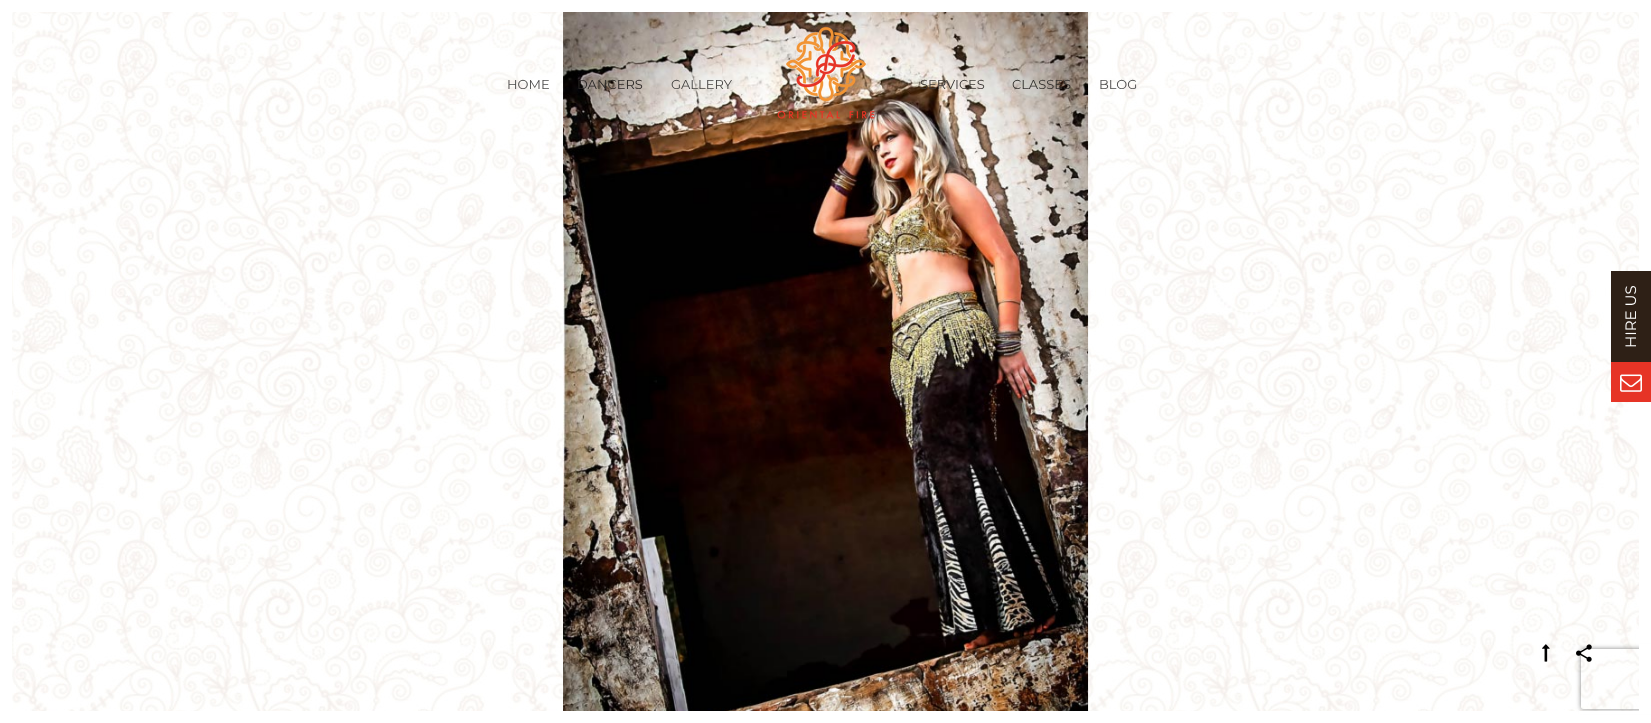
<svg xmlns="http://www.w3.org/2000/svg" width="1651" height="723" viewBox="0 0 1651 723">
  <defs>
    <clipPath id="clip1"><path d="M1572 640H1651V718H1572ZM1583 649H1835C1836 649 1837 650 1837 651V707C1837 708 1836 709 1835 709H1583C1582 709 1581 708 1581 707V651C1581 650 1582 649 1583 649Z" clip-rule="evenodd"/></clipPath>
  </defs>
  <rect width="100%" height="100%" fill="#fff"/>
  <image x="12" y="12" width="1627" height="699" href="img/1.png"/>
  <image x="563" y="12" width="526" height="699" href="img/2.png"/>
  <image x="1542" y="644" width="8" height="18" href="img/3.png"/>
  <g clip-path="url(#clip1)">
    <rect x="1581" y="649" width="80" height="60" rx="2" fill="#808080" filter="blur(2.5px)"/>
  </g>
  <image x="1576" y="644" width="16" height="18" href="img/4.png"/>
  <image x="777" y="27" width="98" height="92" href="img/5.png"/>
  <path d="M1611 271h40v91H1611z" fill="#2e2016"/>
  <path d="M1611 362h40v40H1611z" fill="#e63426"/>
  <image x="1620" y="374" width="22" height="18" href="img/6.png"/>
  <path d="M1639 644h12v67H1639z" fill="#fff"/>
  <path d="M1579 711h72v3H1579z" fill="#fff"/>
  <text x="507" y="89" font-family="Montserrat" font-size="13" fill="#4c4b4b">HOME</text>
  <text x="577" y="89" font-family="Montserrat" font-size="13" fill="#2c2927">DANCERS</text>
  <text x="671" y="89" font-family="Montserrat" font-size="13" fill="#464543">GALLERY</text>
  <text x="920" y="89" font-family="Montserrat" font-size="13" fill="#3c3936">SERVICES</text>
  <text x="1012" y="89" font-family="Montserrat" font-size="13" fill="#33312e">CLASSES</text>
  <text x="1099" y="89" font-family="Montserrat" font-size="13" fill="#4c4b4b">BLOG</text>
  <text x="1636" y="348" transform="rotate(-90 1636 348)" font-family="Montserrat" font-size="15" fill="#fff">HIRE US</text>
</svg>
